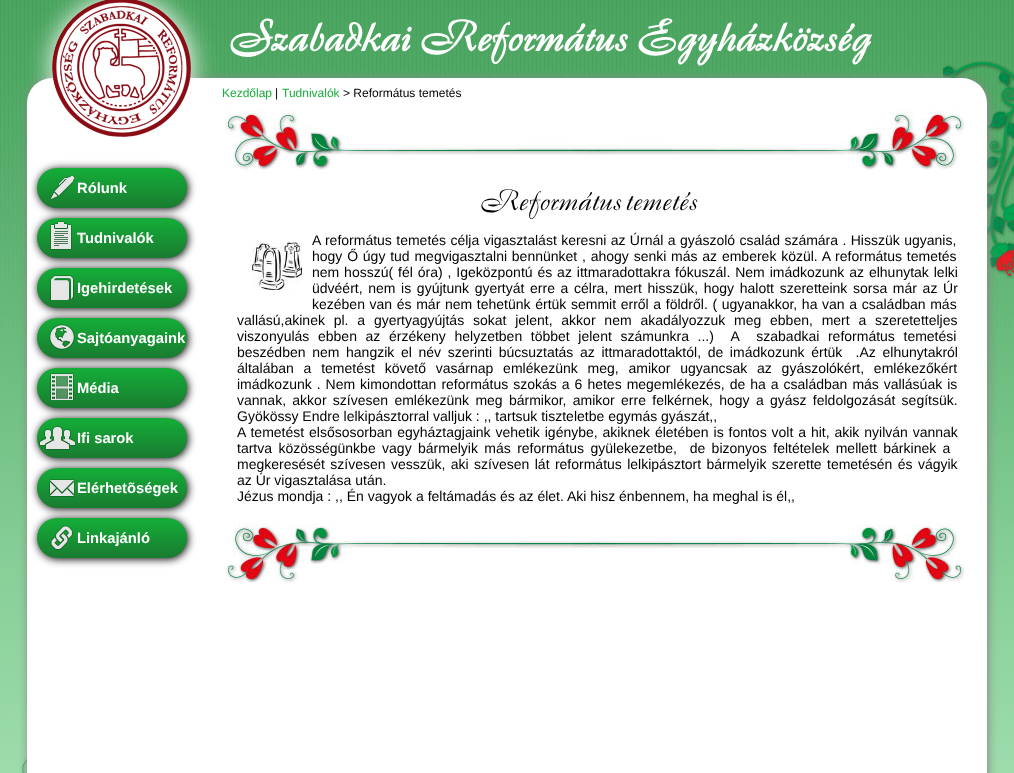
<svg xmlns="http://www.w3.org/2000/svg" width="1014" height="773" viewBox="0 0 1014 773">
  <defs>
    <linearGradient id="g1" gradientUnits="userSpaceOnUse" x1="112" y1="168" x2="112" y2="208"><stop offset="0" stop-color="#14ae38"/><stop offset="1" stop-color="#197b30"/></linearGradient>
    <linearGradient id="g2" gradientUnits="userSpaceOnUse" x1="112" y1="218" x2="112" y2="258"><stop offset="0" stop-color="#14ae38"/><stop offset="1" stop-color="#197b30"/></linearGradient>
    <linearGradient id="g3" gradientUnits="userSpaceOnUse" x1="112" y1="268" x2="112" y2="308"><stop offset="0" stop-color="#14ae38"/><stop offset="1" stop-color="#197b30"/></linearGradient>
    <linearGradient id="g4" gradientUnits="userSpaceOnUse" x1="112" y1="318" x2="112" y2="358"><stop offset="0" stop-color="#14ae38"/><stop offset="1" stop-color="#197b30"/></linearGradient>
    <linearGradient id="g5" gradientUnits="userSpaceOnUse" x1="112" y1="368" x2="112" y2="408"><stop offset="0" stop-color="#14ae38"/><stop offset="1" stop-color="#197b30"/></linearGradient>
    <linearGradient id="g6" gradientUnits="userSpaceOnUse" x1="112" y1="418" x2="112" y2="458"><stop offset="0" stop-color="#14ae38"/><stop offset="1" stop-color="#197b30"/></linearGradient>
    <linearGradient id="g7" gradientUnits="userSpaceOnUse" x1="112" y1="468" x2="112" y2="508"><stop offset="0" stop-color="#14ae38"/><stop offset="1" stop-color="#197b30"/></linearGradient>
    <linearGradient id="g8" gradientUnits="userSpaceOnUse" x1="112" y1="518" x2="112" y2="558"><stop offset="0" stop-color="#14ae38"/><stop offset="1" stop-color="#197b30"/></linearGradient>
  </defs>
  <rect width="100%" height="100%" fill="#fff"/>
  <image x="0" y="0" width="1014" height="773" href="img/1.png"/>
  <image x="943" y="60" width="71" height="219" href="img/14.png"/>
  <image x="21" y="758" width="6" height="15" href="img/15.png"/>
  <rect x="28" y="79" width="960" height="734" rx="25" fill="#888" filter="blur(5px)"/>
  <rect x="27" y="78" width="960" height="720" rx="25" fill="#fff"/>
  <rect x="52" y="-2" width="140" height="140" rx="70" fill="#fff" filter="blur(12.5px)"/>
  <image x="52" y="0" width="139" height="137" href="img/2.png"/>
  <rect x="38" y="169" width="150" height="40" rx="20" fill="#000" filter="blur(4px)"/>
  <rect x="37" y="168" width="150" height="40" rx="20" fill="url(#g1)"/>
  <image x="50" y="175" width="25" height="25" href="img/3.png"/>
  <rect x="38" y="219" width="150" height="40" rx="20" fill="#000" filter="blur(4px)"/>
  <rect x="37" y="218" width="150" height="40" rx="20" fill="url(#g2)"/>
  <image x="50" y="221" width="22" height="29" href="img/4.png"/>
  <rect x="38" y="269" width="150" height="40" rx="20" fill="#000" filter="blur(4px)"/>
  <rect x="37" y="268" width="150" height="40" rx="20" fill="url(#g3)"/>
  <image x="50" y="275" width="24" height="25" href="img/5.png"/>
  <rect x="38" y="319" width="150" height="40" rx="20" fill="#000" filter="blur(4px)"/>
  <rect x="37" y="318" width="150" height="40" rx="20" fill="url(#g4)"/>
  <image x="49" y="324" width="26" height="26" href="img/6.png"/>
  <rect x="38" y="369" width="150" height="40" rx="20" fill="#000" filter="blur(4px)"/>
  <rect x="37" y="368" width="150" height="40" rx="20" fill="url(#g5)"/>
  <image x="50" y="373" width="24" height="27" href="img/7.png"/>
  <rect x="38" y="419" width="150" height="40" rx="20" fill="#000" filter="blur(4px)"/>
  <rect x="37" y="418" width="150" height="40" rx="20" fill="url(#g6)"/>
  <image x="39" y="426" width="37" height="24" href="img/8.png"/>
  <rect x="38" y="469" width="150" height="40" rx="20" fill="#000" filter="blur(4px)"/>
  <rect x="37" y="468" width="150" height="40" rx="20" fill="url(#g7)"/>
  <image x="49" y="479" width="26" height="18" href="img/9.png"/>
  <rect x="38" y="519" width="150" height="40" rx="20" fill="#000" filter="blur(4px)"/>
  <rect x="37" y="518" width="150" height="40" rx="20" fill="url(#g8)"/>
  <image x="50" y="525" width="23" height="25" href="img/10.png"/>
  <image x="225" y="111" width="740" height="59" href="img/11.png"/>
  <image x="252" y="242" width="50" height="48" href="img/12.png"/>
  <image x="225" y="524" width="740" height="59" href="img/13.png"/>
  <text x="227" y="51" font-family="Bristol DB" font-size="44" font-weight="bold" fill="#fff">Szabadkai Református Egyházközség</text>
  <g font-family="Liberation Sans" font-size="14.75" font-weight="bold" fill="#fff">
    <text x="77" y="193">Rólunk</text>
    <text x="77" y="243">Tudnivalók</text>
    <text x="77" y="293">Igehirdetések</text>
    <text x="77" y="343">Sajtóanyagaink</text>
    <text x="77" y="393">Média</text>
    <text x="77" y="443">Ifi sarok</text>
    <text x="77" y="493">Elérhetõségek</text>
    <text x="77" y="543">Linkajánló</text>
  </g>
  <text x="222" y="97" font-family="Liberation Sans" font-size="12" fill="#17ad3a">Kezdőlap</text>
  <text x="275" y="97" font-family="Liberation Sans" font-size="12" fill="#000">|</text>
  <text x="282" y="97" font-family="Liberation Sans" font-size="12" fill="#17ad3a">Tudnivalók</text>
  <text x="343" y="97" font-family="Liberation Sans" font-size="12" fill="#000">&gt; Református temetés</text>
  <text x="479" y="210" font-family="Bristol DB" font-size="30" fill="#000">Református temetés</text>
  <g font-family="Liberation Sans" font-size="14" fill="#000">
    <text x="312" y="245" word-spacing="0.5">A református temetés célja vigasztalást keresni az Úrnál a gyászoló család számára . Hisszük ugyanis,</text>
    <text x="312" y="261" word-spacing="0.9">hogy Ő úgy tud megvigasztalni bennünket , ahogy senki más az emberek közül. A református temetés</text>
    <text x="312" y="277" word-spacing="1">nem hosszú( fél óra) , Igeközpontú és az ittmaradottakra fókuszál. Nem imádkozunk az elhunytak lelki</text>
    <text x="312" y="293" word-spacing="1.75">üdvéért, nem is gyújtunk gyertyát erre a célra, mert hisszük, hogy halott szeretteink sorsa már az Úr</text>
    <text x="312" y="309" word-spacing="0.75">kezében van és már nem tehetünk értük semmit erről a földről. ( ugyanakkor, ha van a családban más</text>
    <text x="237" y="325" word-spacing="4.9">vallású,akinek pl. a gyertyagyújtás sokat jelent, akkor nem akadályozzuk meg ebben, mert a szeretetteljes</text>
    <text x="237" y="341" word-spacing="4.75" xml:space="preserve">viszonyulás ebben az érzékeny helyzetben többet jelent számunkra ...)  A  szabadkai református temetési</text>
    <text x="237" y="357" word-spacing="2.75" xml:space="preserve">beszédben nem hangzik el név szerinti búcsuztatás az ittmaradottaktól, de imádkozunk értük  .Az elhunytakról</text>
    <text x="237" y="373" word-spacing="5.9">általában a temetést követő vasárnap emlékezünk meg, amikor ugyancsak az gyászolókért, emlékezőkért</text>
    <text x="237" y="389" word-spacing="1.1">imádkozunk . Nem kimondottan református szokás a 6 hetes megemlékezés, de ha a családban más vallásúak is</text>
    <text x="237" y="405" word-spacing="2.4">vannak, akkor szívesen emlékezünk meg bármikor, amikor erre felkérnek, hogy a gyász feldolgozását segítsük.</text>
    <text x="237" y="421">Gyökössy Endre lelkipásztorral valljuk : ,, tartsuk tiszteletbe egymás gyászát,,</text>
    <text x="237" y="437" word-spacing="1">A temetést elsősosorban egyháztagjaink vehetik igénybe, akiknek életében is fontos volt a hit, akik nyilván vannak</text>
    <text x="237" y="453" word-spacing="2.5" xml:space="preserve">tartva közösségünkbe vagy bármelyik más református gyülekezetbe,  de bizonyos feltételek mellett bárkinek a</text>
    <text x="237" y="469" word-spacing="1.5">megkeresését szívesen vesszük, aki szívesen lát református lelkipásztort bármelyik szerette temetésén és vágyik</text>
    <text x="237" y="485">az Úr vigasztalása után.</text>
    <text x="237" y="501">Jézus mondja : ,, Én vagyok a feltámadás és az élet. Aki hisz énbennem, ha meghal is él,,</text>
  </g>
</svg>
